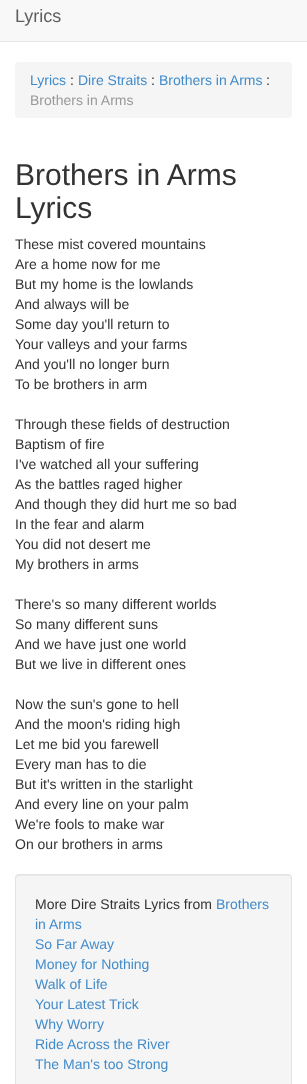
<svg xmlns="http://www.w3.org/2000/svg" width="307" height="1084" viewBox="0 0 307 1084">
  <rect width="100%" height="100%" fill="#fff"/>
  <path d="M0 0h307v41H0z" fill="#f8f8f8"/>
  <path d="M0 41h307v1H0z" fill="#e7e7e7"/>
  <rect x="15" y="62" width="277" height="56" rx="4" fill="#f5f5f5"/>
  <rect x="15" y="874" width="277" height="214" rx="4" fill="#f5f5f5"/>
  <path d="M19 876H288C290 876 291 877 291 879V878C291 876 290 875 288 875H19C17 875 16 876 16 878V879C16 877 17 876 19 876Z" fill="#e9e9e9"/>
  <rect x="15.5" y="874.5" width="276" height="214" rx="3.5" fill="none" stroke="#e3e3e3"/>
  <text x="15" y="22" font-family="Liberation Sans" font-size="18" fill="#5e5e5e">Lyrics</text>
  <text x="30" y="85" font-family="Liberation Sans" font-size="14" fill="#428bca">Lyrics</text>
  <text x="70" y="85" font-family="Liberation Sans" font-size="14" fill="#333">:</text>
  <text x="78" y="85" font-family="Liberation Sans" font-size="14" fill="#428bca">Dire Straits</text>
  <text x="151" y="85" font-family="Liberation Sans" font-size="14" fill="#333">:</text>
  <text x="159" y="85" font-family="Liberation Sans" font-size="14" fill="#428bca">Brothers in Arms</text>
  <text x="266" y="85" font-family="Liberation Sans" font-size="14" fill="#333">:</text>
  <text x="30" y="105" font-family="Liberation Sans" font-size="14" fill="#999">Brothers in Arms</text>
  <g font-family="Liberation Sans" font-size="30" fill="#333">
    <text x="15" y="185">Brothers in Arms</text>
    <text x="15" y="218">Lyrics</text>
  </g>
  <g font-family="Liberation Sans" font-size="14" fill="#333">
    <text x="15" y="249">These mist covered mountains</text>
    <text x="15" y="269">Are a home now for me</text>
    <text x="15" y="289">But my home is the lowlands</text>
    <text x="15" y="309">And always will be</text>
    <text x="15" y="329">Some day you'll return to</text>
    <text x="15" y="349">Your valleys and your farms</text>
    <text x="15" y="369">And you'll no longer burn</text>
    <text x="15" y="389">To be brothers in arm</text>
    <text x="15" y="429">Through these fields of destruction</text>
    <text x="15" y="449">Baptism of fire</text>
    <text x="15" y="469">I've watched all your suffering</text>
    <text x="15" y="489">As the battles raged higher</text>
    <text x="15" y="509">And though they did hurt me so bad</text>
    <text x="15" y="529">In the fear and alarm</text>
    <text x="15" y="549">You did not desert me</text>
    <text x="15" y="569">My brothers in arms</text>
    <text x="15" y="609">There's so many different worlds</text>
    <text x="15" y="629">So many different suns</text>
    <text x="15" y="649">And we have just one world</text>
    <text x="15" y="669">But we live in different ones</text>
    <text x="15" y="709">Now the sun's gone to hell</text>
    <text x="15" y="729">And the moon's riding high</text>
    <text x="15" y="749">Let me bid you farewell</text>
    <text x="15" y="769">Every man has to die</text>
    <text x="15" y="789">But it's written in the starlight</text>
    <text x="15" y="809">And every line on your palm</text>
    <text x="15" y="829">We're fools to make war</text>
    <text x="15" y="849">On our brothers in arms</text>
    <text x="35" y="909">More Dire Straits Lyrics from</text>
  </g>
  <g font-family="Liberation Sans" font-size="14" fill="#428bca">
    <text x="216" y="909">Brothers</text>
    <text x="35" y="929">in Arms</text>
    <text x="35" y="949">So Far Away</text>
    <text x="35" y="969">Money for Nothing</text>
    <text x="35" y="989">Walk of Life</text>
    <text x="35" y="1009">Your Latest Trick</text>
    <text x="35" y="1029">Why Worry</text>
    <text x="35" y="1049">Ride Across the River</text>
    <text x="35" y="1069">The Man's too Strong</text>
  </g>
</svg>
